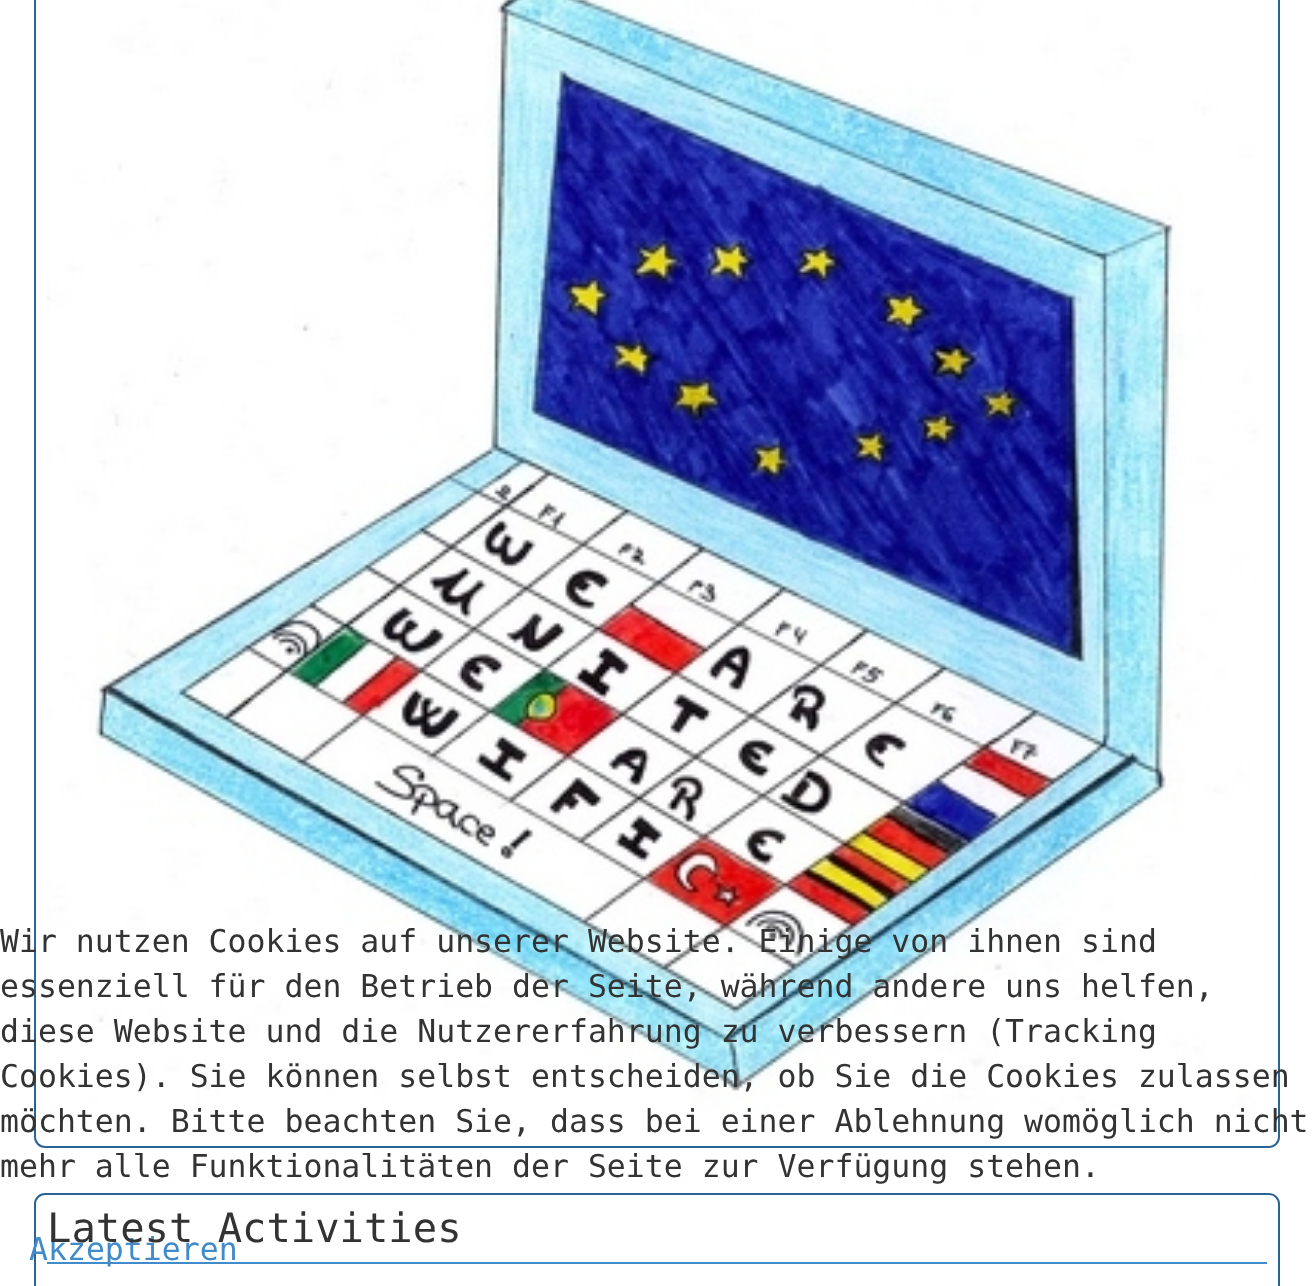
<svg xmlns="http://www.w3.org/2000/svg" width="1313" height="1286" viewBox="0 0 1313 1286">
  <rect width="100%" height="100%" fill="#fff"/>
  <rect x="35" y="-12" width="1244" height="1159" rx="10" fill="none" stroke="#2a6496" stroke-width="2"/>
  <image x="47" y="0" width="1210" height="1112" href="img/1.png"/>
  <rect x="35" y="1194" width="1244" height="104" rx="10" fill="none" stroke="#2a6496" stroke-width="2"/>
  <path d="M47 1262h1220v2H47z" fill="#428bca"/>
  <g font-family="DejaVu Sans Mono" font-size="31.5" fill="#333">
    <text x="0" y="952">Wir nutzen Cookies auf unserer Website. Einige von ihnen sind</text>
    <text x="0" y="997">essenziell für den Betrieb der Seite, während andere uns helfen,</text>
    <text x="0" y="1042">diese Website und die Nutzererfahrung zu verbessern (Tracking</text>
    <text x="0" y="1087">Cookies). Sie können selbst entscheiden, ob Sie die Cookies zulassen</text>
    <text x="0" y="1132">möchten. Bitte beachten Sie, dass bei einer Ablehnung womöglich nicht</text>
    <text x="0" y="1177">mehr alle Funktionalitäten der Seite zur Verfügung stehen.</text>
  </g>
  <text x="29" y="1260" font-family="DejaVu Sans Mono" font-size="31.5" fill="#428bca">Akzeptieren</text>
  <text x="47" y="1242" font-family="DejaVu Sans Mono" font-size="40.5" fill="#333">Latest Activities</text>
</svg>
